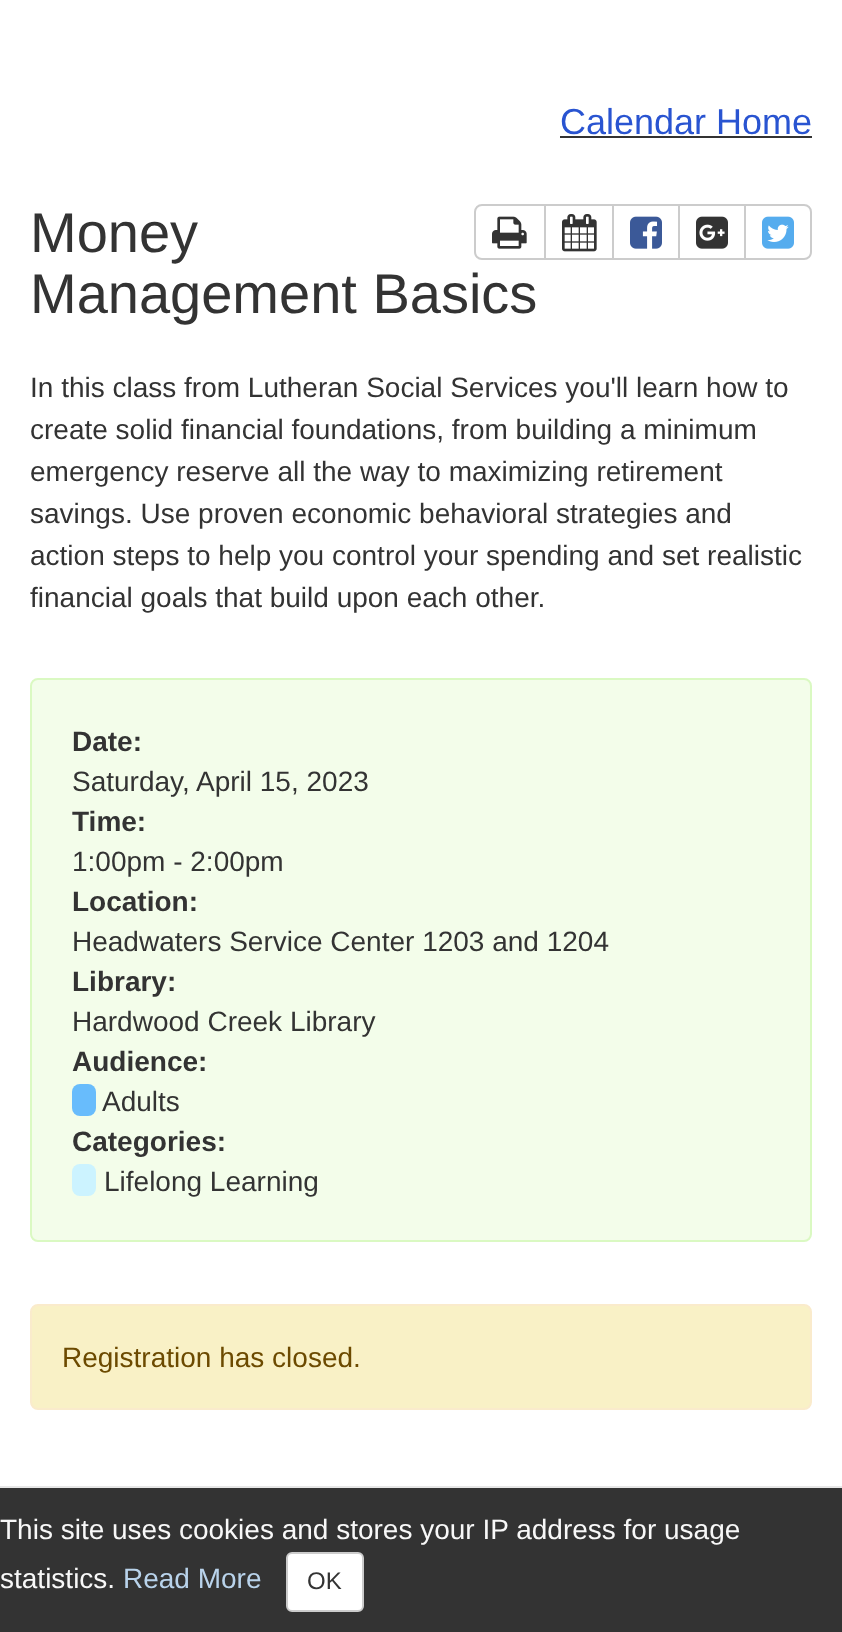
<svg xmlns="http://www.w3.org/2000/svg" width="842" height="1632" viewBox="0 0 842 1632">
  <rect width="100%" height="100%" fill="#fff"/>
  <path d="M560 136h252v2H560z" fill="#333"/>
  <path d="M482 205H545V259H482C478 259 475 256 475 252V212C475 208 478 205 482 205Z" fill="none" stroke="#ccc" stroke-width="2"/>
  <image x="492" y="216" width="35" height="33" href="img/1.png"/>
  <path d="M545 205h68v54H545z" fill="none" stroke="#ccc" stroke-width="2"/>
  <image x="562" y="214" width="35" height="38" href="img/2.png"/>
  <path d="M613 205h66v54H613z" fill="none" stroke="#ccc" stroke-width="2"/>
  <image x="630" y="216" width="32" height="33" href="img/3.png"/>
  <path d="M679 205h66v54H679z" fill="none" stroke="#ccc" stroke-width="2"/>
  <image x="696" y="216" width="32" height="33" href="img/4.png"/>
  <path d="M745 205H804C808 205 811 208 811 212V252C811 256 808 259 804 259H745Z" fill="#fff" stroke="#ccc" stroke-width="2"/>
  <image x="762" y="216" width="32" height="33" href="img/5.png"/>
  <rect x="31" y="679" width="780" height="562" rx="7" fill="#f3fdea" stroke="#daf9c2" stroke-width="2"/>
  <rect x="72" y="1084" width="24" height="32" rx="8" fill="#68bcfc"/>
  <rect x="72" y="1164" width="24" height="32" rx="8" fill="#ccf3ff"/>
  <rect x="31" y="1305" width="780" height="104" rx="7" fill="#f9f1c6" stroke="#faebcc" stroke-width="2"/>
  <path d="M0 1488h842v144H0z" fill="#333"/>
  <path d="M0 1486h842v2H0z" fill="#e7e7e7"/>
  <rect x="287" y="1553" width="76" height="58" rx="5" fill="#fff" stroke="#ccc" stroke-width="2"/>
  <text x="560" y="134" font-family="Liberation Sans" font-size="36" fill="#2954d1">Calendar Home</text>
  <g font-family="Liberation Sans" font-size="56" fill="#333">
    <text x="30" y="252">Money</text>
    <text x="30" y="313">Management Basics</text>
  </g>
  <g font-family="Liberation Sans" font-size="28" fill="#333">
    <text x="30" y="397">In this class from Lutheran Social Services you'll learn how to</text>
    <text x="30" y="439">create solid financial foundations, from building a minimum</text>
    <text x="30" y="481">emergency reserve all the way to maximizing retirement</text>
    <text x="30" y="523">savings. Use proven economic behavioral strategies and</text>
    <text x="30" y="565">action steps to help you control your spending and set realistic</text>
    <text x="30" y="607">financial goals that build upon each other.</text>
  </g>
  <text x="72" y="751" font-family="Liberation Sans" font-size="28" font-weight="bold" fill="#333">Date:</text>
  <text x="72" y="791" font-family="Liberation Sans" font-size="28" fill="#333">Saturday, April 15, 2023</text>
  <text x="72" y="831" font-family="Liberation Sans" font-size="28" font-weight="bold" fill="#333">Time:</text>
  <text x="72" y="871" font-family="Liberation Sans" font-size="28" fill="#333">1:00pm - 2:00pm</text>
  <text x="72" y="911" font-family="Liberation Sans" font-size="28" font-weight="bold" fill="#333">Location:</text>
  <text x="72" y="951" font-family="Liberation Sans" font-size="28" fill="#333">Headwaters Service Center 1203 and 1204</text>
  <text x="72" y="991" font-family="Liberation Sans" font-size="28" font-weight="bold" fill="#333">Library:</text>
  <text x="72" y="1031" font-family="Liberation Sans" font-size="28" fill="#333">Hardwood Creek Library</text>
  <text x="72" y="1071" font-family="Liberation Sans" font-size="28" font-weight="bold" fill="#333">Audience:</text>
  <text x="102" y="1111" font-family="Liberation Sans" font-size="28" fill="#333">Adults</text>
  <text x="72" y="1151" font-family="Liberation Sans" font-size="28" font-weight="bold" fill="#333">Categories:</text>
  <text x="104" y="1191" font-family="Liberation Sans" font-size="28" fill="#333">Lifelong Learning</text>
  <text x="62" y="1367" font-family="Liberation Sans" font-size="28" fill="#6c4a00">Registration has closed.</text>
  <g font-family="Liberation Sans" font-size="28" fill="#f8f8f8">
    <text x="0" y="1539">This site uses cookies and stores your IP address for usage</text>
    <text x="0" y="1588">statistics.</text>
  </g>
  <text x="123" y="1588" font-family="Liberation Sans" font-size="28" fill="#b9d3eb">Read More</text>
  <text x="307" y="1589" font-family="Liberation Sans" font-size="24" fill="#333">OK</text>
</svg>
